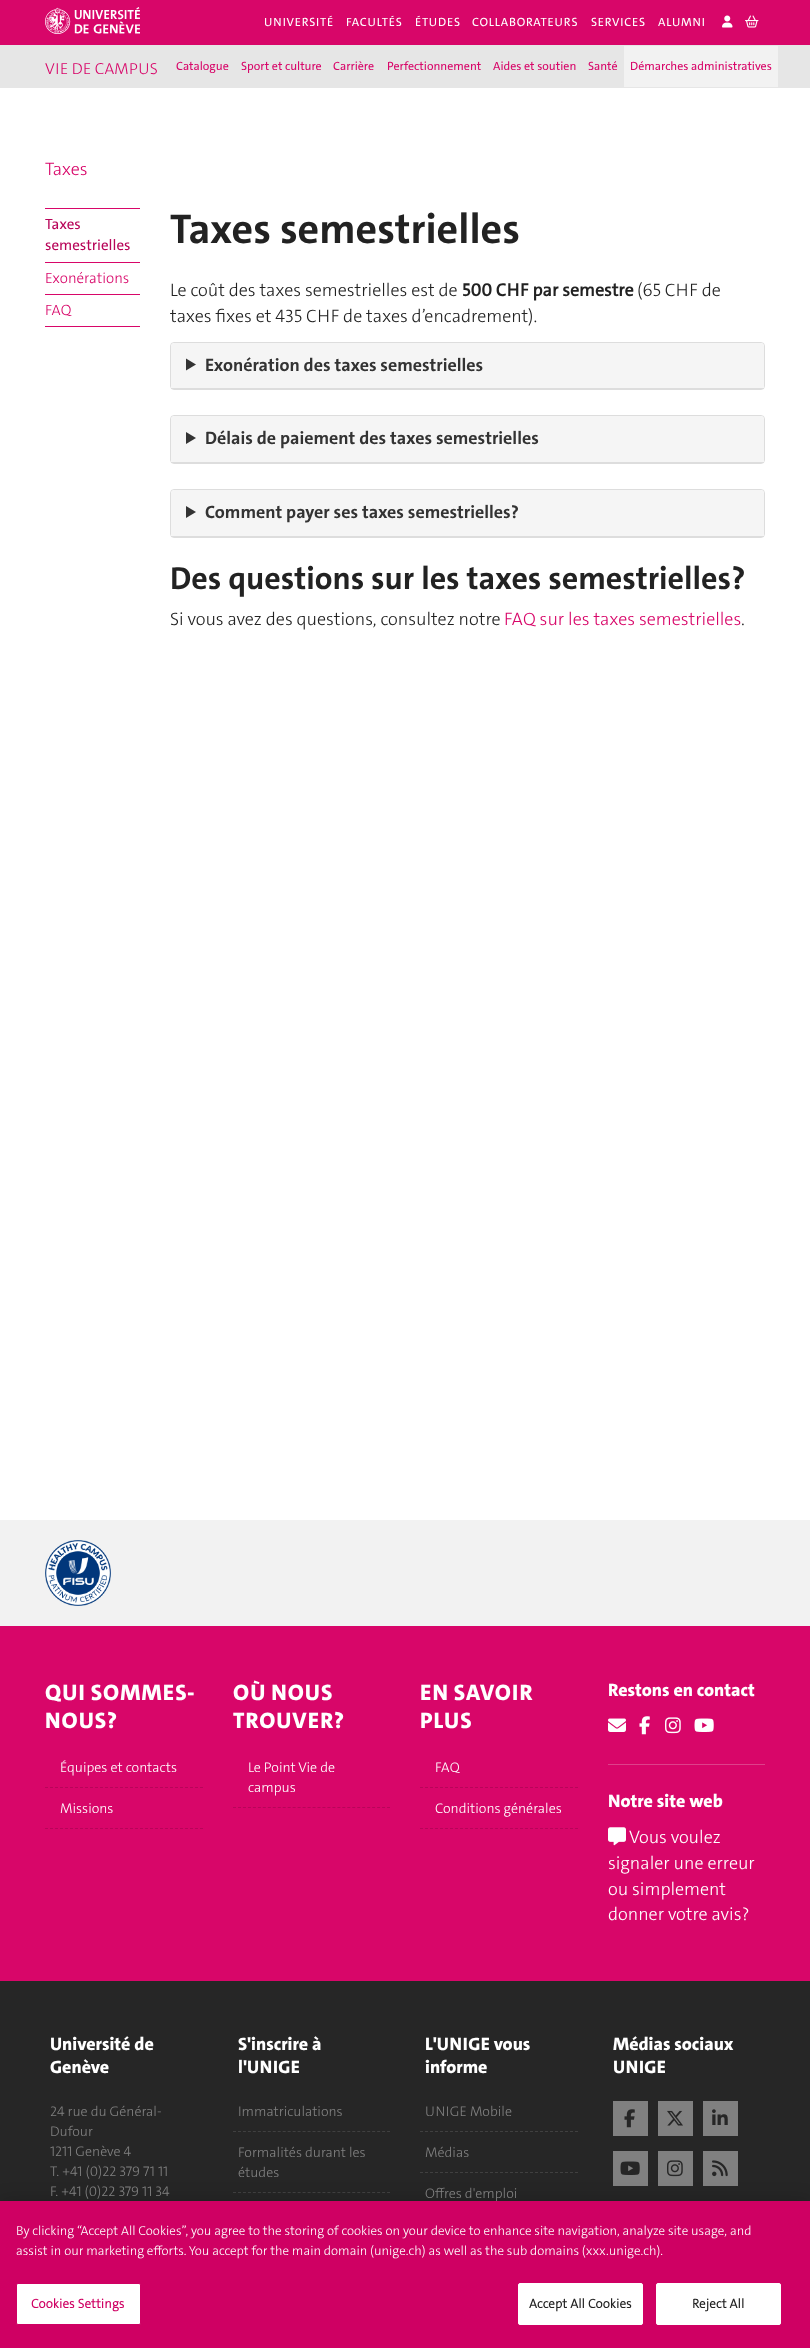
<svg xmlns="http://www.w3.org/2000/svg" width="810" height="2348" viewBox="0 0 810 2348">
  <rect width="100%" height="100%" fill="#fff"/>
  <path d="M0 0h810v45H0z" fill="#d80669"/>
  <image x="45" y="7" width="95" height="27" href="img/1.png"/>
  <image x="722" y="15" width="11" height="13" href="img/2.png"/>
  <image x="745" y="15" width="14" height="13" href="img/3.png"/>
  <path d="M0 45h810v43H0z" fill="#e6e6e6"/>
  <path d="M624 46h154v41H624z" fill="#f2f2f2"/>
  <path d="M45 326h95v1H45z" fill="#d80669"/>
  <path d="M45 208h95v1H45z" fill="#d80669"/>
  <path d="M45 262h95v1H45z" fill="#d80669"/>
  <path d="M45 294h95v1H45z" fill="#d80669"/>
  <rect x="170.5" y="342.5" width="594" height="47" rx="3.5" fill="none" stroke="#ddd"/>
  <path d="M174 343H761C762.5 343 764 344.5 764 346V389H171V346C171 344.5 172.5 343 174 343Z" fill="#f5f5f5"/>
  <path d="M171 388h593v1H171z" fill="#ddd"/>
  <path d="M186 358.5L196 364.5L186 370.5Z" fill="#333"/>
  <rect x="170.5" y="415.5" width="594" height="48" rx="3.5" fill="none" stroke="#ddd"/>
  <path d="M174 416H761C762.5 416 764 417.5 764 419V463H171V419C171 417.5 172.5 416 174 416Z" fill="#f5f5f5"/>
  <path d="M171 462h593v1H171z" fill="#ddd"/>
  <path d="M186 432L196 438L186 444Z" fill="#333"/>
  <rect x="170.5" y="489.5" width="594" height="48" rx="3.5" fill="none" stroke="#ddd"/>
  <path d="M174 490H761C762.5 490 764 491.5 764 493V537H171V493C171 491.5 172.5 490 174 490Z" fill="#f5f5f5"/>
  <path d="M171 536h593v1H171z" fill="#ddd"/>
  <path d="M186 506L196 512L186 518Z" fill="#333"/>
  <path d="M0 1520h810v106H0z" fill="#f2f2f2"/>
  <image x="45" y="1540" width="66" height="66" href="img/4.png"/>
  <path d="M0 1626h810v355H0z" fill="#d80669"/>
  <path d="M45 1787.5H203" fill="none" stroke="#b80559" stroke-dasharray="3 2"/>
  <path d="M45 1828.5H203" fill="none" stroke="#b80559" stroke-dasharray="3 2"/>
  <path d="M233 1807.5H390" fill="none" stroke="#b80559" stroke-dasharray="3 1.97"/>
  <path d="M420 1787.5H578" fill="none" stroke="#b80559" stroke-dasharray="3 2"/>
  <path d="M420 1828.5H578" fill="none" stroke="#b80559" stroke-dasharray="3 2"/>
  <image x="608" y="1718" width="18" height="14" href="img/5.png"/>
  <image x="639" y="1716" width="11" height="19" href="img/6.png"/>
  <image x="665" y="1717" width="16" height="17" href="img/7.png"/>
  <image x="694" y="1718" width="20" height="14" href="img/8.png"/>
  <path d="M608 1764h157v1H608z" fill="#de408a"/>
  <image x="608" y="1827" width="18" height="19" href="img/9.png"/>
  <path d="M0 1981h810v220H0z" fill="#262626"/>
  <path d="M233 2131.5H390" fill="none" stroke="#404040" stroke-dasharray="3 1.97"/>
  <path d="M233 2192.5H390" fill="none" stroke="#404040" stroke-dasharray="3 1.97"/>
  <path d="M420 2131.5H578" fill="none" stroke="#404040" stroke-dasharray="3 2"/>
  <path d="M420 2172.5H578" fill="none" stroke="#404040" stroke-dasharray="3 2"/>
  <path d="M613 2101h35v35H613z" fill="#808080"/>
  <image x="624" y="2109" width="11" height="19" href="img/10.png"/>
  <path d="M658 2101h35v35H658z" fill="#808080"/>
  <image x="667" y="2110" width="16" height="16" href="img/11.png"/>
  <path d="M703 2101h35v35H703z" fill="#808080"/>
  <image x="712" y="2109" width="16" height="16" href="img/12.png"/>
  <path d="M613 2151h35v35H613z" fill="#808080"/>
  <image x="620" y="2161" width="20" height="14" href="img/13.png"/>
  <path d="M658 2151h35v35H658z" fill="#808080"/>
  <image x="667" y="2160" width="16" height="17" href="img/14.png"/>
  <path d="M703 2151h35v35H703z" fill="#808080"/>
  <image x="712" y="2160" width="16" height="17" href="img/15.png"/>
  <path d="M0 2201h810v147H0z" fill="#00000033" filter="blur(9px)"/>
  <g font-family="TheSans" font-size="12" letter-spacing="0.5" fill="#fff">
    <text x="264" y="26">UNIVERSITÉ</text>
    <text x="346" y="26">FACULTÉS</text>
    <text x="415" y="26">ÉTUDES</text>
    <text x="472" y="26">COLLABORATEURS</text>
    <text x="591" y="26">SERVICES</text>
    <text x="658" y="26">ALUMNI</text>
  </g>
  <text x="45" y="74" font-family="TheSans" font-size="16" font-weight="300" fill="#d80669">VIE DE CAMPUS</text>
  <g font-family="TheSans" font-size="12" fill="#d80669">
    <text x="176" y="70">Catalogue</text>
    <text x="241" y="70">Sport et culture</text>
    <text x="333" y="70">Carrière</text>
    <text x="387" y="70">Perfectionnement</text>
    <text x="493" y="70">Aides et soutien</text>
    <text x="588" y="70">Santé</text>
    <text x="630" y="70">Démarches administratives</text>
  </g>
  <text x="45" y="175" font-family="TheSans" font-size="18" font-weight="300" fill="#d80669">Taxes</text>
  <g font-family="TheSans" font-size="15" fill="#b80559">
    <text x="45" y="229">Taxes</text>
    <text x="45" y="250">semestrielles</text>
  </g>
  <g font-family="TheSans" font-size="15" font-weight="300" fill="#d80669">
    <text x="45" y="283">Exonérations</text>
    <text x="45" y="315">FAQ</text>
  </g>
  <text x="170" y="243" font-family="TheSans" font-size="42" font-weight="bold" fill="#222">Taxes semestrielles</text>
  <text x="170" y="296" font-family="TheSans" font-size="18" font-weight="300" fill="#222">Le coût des taxes semestrielles est de</text>
  <text x="462" y="296" font-family="'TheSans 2'" font-size="18" font-weight="bold" fill="#222">500 CHF par semestre</text>
  <g font-family="TheSans" font-size="18" font-weight="300" fill="#222">
    <text x="637" y="296">(65 CHF de</text>
    <text x="170" y="322">taxes fixes et 435 CHF de taxes d’encadrement).</text>
  </g>
  <g font-family="TheSans" font-size="18" font-weight="bold" fill="#333">
    <text x="205" y="371">Exonération des taxes semestrielles</text>
    <text x="205" y="444">Délais de paiement des taxes semestrielles</text>
    <text x="205" y="518">Comment payer ses taxes semestrielles?</text>
  </g>
  <text x="170" y="589" font-family="TheSans" font-size="32" font-weight="bold" fill="#222">Des questions sur les taxes semestrielles?</text>
  <text x="170" y="625" font-family="TheSans" font-size="18" font-weight="300" fill="#222">Si vous avez des questions, consultez notre</text>
  <text x="504" y="625" font-family="TheSans" font-size="18" font-weight="300" fill="#d80669">FAQ sur les taxes semestrielles</text>
  <text x="741" y="625" font-family="TheSans" font-size="18" font-weight="300" fill="#222">.</text>
  <g font-family="TheSans" font-size="22.5" font-weight="800" letter-spacing="0.5" fill="#fff">
    <text x="45" y="1700">QUI SOMMES-</text>
    <text x="45" y="1728">NOUS?</text>
  </g>
  <g font-family="TheSans" font-size="14" font-weight="300" fill="#fff">
    <text x="60" y="1772">Équipes et contacts</text>
    <text x="60" y="1813">Missions</text>
  </g>
  <g font-family="TheSans" font-size="22.5" font-weight="800" letter-spacing="0.5" fill="#fff">
    <text x="233" y="1700">OÙ NOUS</text>
    <text x="233" y="1728">TROUVER?</text>
  </g>
  <g font-family="TheSans" font-size="14" font-weight="300" fill="#fff">
    <text x="248" y="1772">Le Point Vie de</text>
    <text x="248" y="1792">campus</text>
  </g>
  <g font-family="TheSans" font-size="22.5" font-weight="800" letter-spacing="0.5" fill="#fff">
    <text x="420" y="1700">EN SAVOIR</text>
    <text x="420" y="1728">PLUS</text>
  </g>
  <g font-family="TheSans" font-size="14" font-weight="300" fill="#fff">
    <text x="435" y="1772">FAQ</text>
    <text x="435" y="1813">Conditions générales</text>
  </g>
  <g font-family="TheSans" font-size="18" font-weight="800" fill="#fff">
    <text x="608" y="1696">Restons en contact</text>
    <text x="608" y="1807">Notre site web</text>
  </g>
  <g font-family="TheSans" font-size="18" font-weight="300" fill="#fff">
    <text x="629" y="1843">Vous voulez</text>
    <text x="608" y="1869">signaler une erreur</text>
    <text x="608" y="1895">ou simplement</text>
    <text x="608" y="1920">donner votre avis?</text>
  </g>
  <g font-family="TheSans" font-size="18" font-weight="800" fill="#fff">
    <text x="50" y="2050">Université de</text>
    <text x="50" y="2073">Genève</text>
  </g>
  <g font-family="TheSans" font-size="14" font-weight="300" fill="#808080">
    <text x="50" y="2116">24 rue du Général-</text>
    <text x="50" y="2136">Dufour</text>
    <text x="50" y="2156">1211 Genève 4</text>
    <text x="50" y="2176">T. +41 (0)22 379 71 11</text>
    <text x="50" y="2196">F. +41 (0)22 379 11 34</text>
  </g>
  <g font-family="TheSans" font-size="18" font-weight="800" fill="#fff">
    <text x="238" y="2050">S'inscrire à</text>
    <text x="238" y="2073">l'UNIGE</text>
  </g>
  <g font-family="TheSans" font-size="14" font-weight="300" fill="#808080">
    <text x="238" y="2116">Immatriculations</text>
    <text x="238" y="2157">Formalités durant les</text>
    <text x="238" y="2177">études</text>
  </g>
  <g font-family="TheSans" font-size="18" font-weight="800" fill="#fff">
    <text x="425" y="2050">L'UNIGE vous</text>
    <text x="425" y="2073">informe</text>
  </g>
  <g font-family="TheSans" font-size="14" font-weight="300" fill="#808080">
    <text x="425" y="2116">UNIGE Mobile</text>
    <text x="425" y="2157">Médias</text>
    <text x="425" y="2198">Offres d'emploi</text>
  </g>
  <g font-family="TheSans" font-size="18" font-weight="800" fill="#fff">
    <text x="613" y="2050">Médias sociaux</text>
    <text x="613" y="2073">UNIGE</text>
  </g>
  <path d="M0 2201h810v147H0z" fill="#cf0063"/>
  <g font-family="TheSans" font-size="13" font-weight="300" fill="#fff">
    <text x="16" y="2235">By clicking “Accept All Cookies”, you agree to the storing of cookies on your device to enhance site navigation, analyze site usage, and</text>
    <text x="16" y="2255">assist in our marketing efforts. You accept for the main domain (unige.ch) as well as the sub domains (xxx.unige.ch).</text>
  </g>
  <rect x="16.5" y="2283.5" width="124" height="41" rx="1.5" fill="#fff" stroke="#cf0063"/>
  <text x="31" y="2308" font-family="'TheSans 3'" font-size="13" font-weight="bold" letter-spacing="0.1" fill="#cf0063">Cookies Settings</text>
  <rect x="518.5" y="2283.5" width="124" height="41" rx="1.5" fill="#fff" stroke="#fff"/>
  <text x="529" y="2308" font-family="'TheSans 3'" font-size="13" font-weight="bold" letter-spacing="0.1" fill="#222">Accept All Cookies</text>
  <rect x="656.5" y="2283.5" width="124" height="41" rx="1.5" fill="#fff" stroke="#fff"/>
  <text x="692" y="2308" font-family="'TheSans 3'" font-size="13" font-weight="bold" letter-spacing="0.1" fill="#222">Reject All</text>
</svg>
